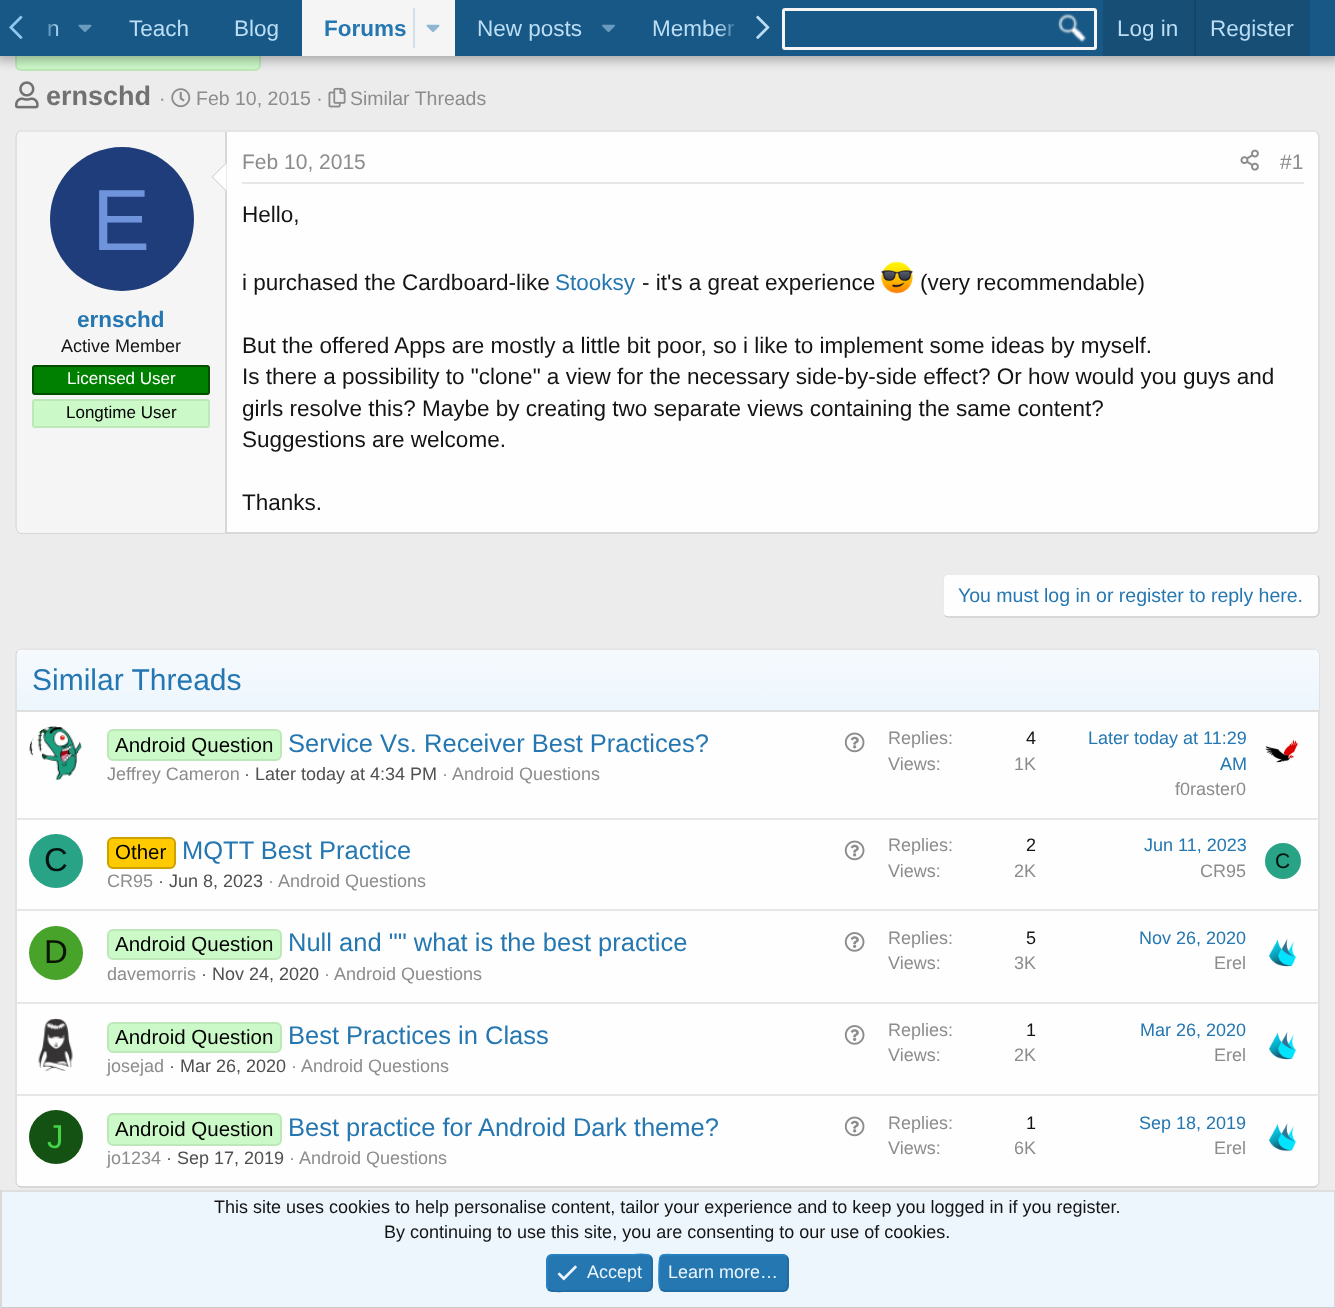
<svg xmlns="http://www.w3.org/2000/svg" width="1335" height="1308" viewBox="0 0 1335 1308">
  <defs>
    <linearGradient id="g1" gradientUnits="userSpaceOnUse" x1="668" y1="710" x2="668" y2="650"><stop offset="0" stop-color="#edf6fd"/><stop offset="1" stop-color="#f6fafe"/></linearGradient>
    <linearGradient id="g2" gradientUnits="userSpaceOnUse" x1="0" y1="28" x2="60" y2="28"><stop offset="0.66" stop-color="#185886"/><stop offset="1" stop-color="#185886" stop-opacity="0"/></linearGradient>
    <linearGradient id="g3" gradientUnits="userSpaceOnUse" x1="719" y1="28" x2="779" y2="28"><stop offset="0" stop-color="#185886" stop-opacity="0"/><stop offset="0.33" stop-color="#185886"/></linearGradient>
  </defs>
  <rect width="100%" height="100%" fill="#ececec"/>
  <rect x="16" y="30" width="244" height="40" rx="5" fill="#ccf9c8" stroke="#bee8ba" stroke-width="2"/>
  <path d="M-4 -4h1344v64H-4z" fill="#0000004d" filter="blur(6px)"/>
  <path d="M40 0h1295v56H40z" fill="#185886"/>
  <image x="78" y="24" width="14" height="8" href="img/2.png"/>
  <path d="M302 0h153v56H302z" fill="#f5f5f5"/>
  <path d="M413 8h2v40H413z" fill="#d1dfe9"/>
  <image x="426" y="24" width="14" height="9" href="img/3.png"/>
  <image x="602" y="24" width="13" height="9" href="img/4.png"/>
  <image x="756" y="15" width="14" height="24" href="img/5.png"/>
  <image x="1057" y="13" width="30" height="30" href="img/6.png"/>
  <rect x="783.5" y="9.5" width="312" height="39" rx="1.5" fill="none" stroke="#f5f5f5" stroke-width="3"/>
  <path d="M1103 0h207v56H1103z" fill="#174e75"/>
  <path d="M1194 0h2v56H1194z" fill="#174566"/>
  <image x="15" y="81" width="24" height="28" href="img/7.png"/>
  <image x="171" y="88" width="20" height="20" href="img/8.png"/>
  <image x="328" y="87" width="18" height="21" href="img/9.png"/>
  <rect x="15" y="131" width="1305" height="403" rx="6" fill="#fefefe"/>
  <path d="M17.5 133C18.5 132 19.5 131 21 131H1314C1315.5 131 1316.5 132 1317.5 133" fill="none" stroke="#dfdfdf" stroke-width="1.5"/>
  <path d="M1317.5 133C1318.5 134 1319 135 1319 136.5V528C1319 529.5 1318.5 530.5 1317.5 531.5" fill="none" stroke="#d8d8d8" stroke-width="1.5"/>
  <path d="M1317.5 531.5C1316.5 532.5 1315.5 533 1314 533H21C19.5 533 18.5 532.5 17.5 531.5" fill="none" stroke="#cbcbcb" stroke-width="1.5"/>
  <path d="M17.5 531.5C16.5 530.5 16 529.5 16 528V136.5C16 135 16.5 134 17.5 133" fill="none" stroke="#d8d8d8" stroke-width="1.5"/>
  <path d="M22 132H227V533H22C19 533 17 531 17 528V137C17 134 19 132 22 132Z" fill="#f5f5f5"/>
  <path d="M225 132h2v401H225z" fill="#d8d8d8"/>
  <path d="M226.5 162V192L211.5 177Z" fill="#d8d8d8"/>
  <path d="M226.5 163.5V190.5L213 177Z" fill="#fefefe"/>
  <circle cx="122" cy="219" r="72" fill="#1f3d7a"/>
  <rect x="33" y="366" width="176" height="28" rx="2" fill="#008000" stroke="#004d00" stroke-width="2"/>
  <rect x="33" y="400" width="176" height="27" rx="2" fill="#ccf9c8" stroke="#bee8ba" stroke-width="2"/>
  <path d="M242 182h1062v2H242z" fill="#e7e7e7"/>
  <image x="1240" y="149" width="19" height="22" href="img/10.png"/>
  <image x="881" y="261" width="32" height="33" href="img/11.png"/>
  <rect x="942" y="573" width="378" height="45" rx="6" fill="#fefefe"/>
  <path d="M1317.5 575.5C1318.5 576.5 1319 577.5 1319 579V612C1319 613.5 1318.5 614.5 1317.5 615.5C1316.5 616.5 1315.5 617 1314 617H948C946.5 617 945.5 616.5 944.5 615.5" fill="none" stroke="#cbcbcb" stroke-width="1.5"/>
  <path d="M944.5 615.5C943.5 614.5 943 613.5 943 612V579C943 577.5 943.5 576.5 944.5 575.5C945.5 574.5 946.5 574 948 574H1314C1315.5 574 1316.5 574.5 1317.5 575.5" fill="none" stroke="#e5e5e5" stroke-width="1.5"/>
  <rect x="15" y="648" width="1305" height="540" rx="6" fill="#fefefe"/>
  <path d="M17.5 650.5C18.5 649.5 19.5 649 21 649H1314C1315.5 649 1316.5 649.5 1317.5 650.5" fill="none" stroke="#dfdfdf" stroke-width="1.5"/>
  <path d="M1317.5 650.5C1318.5 651.5 1319 652.5 1319 654V1182C1319 1183.5 1318.5 1184.5 1317.5 1185.5" fill="none" stroke="#d8d8d8" stroke-width="1.5"/>
  <path d="M1317.5 1185.5C1316.5 1186.5 1315.5 1187 1314 1187H21C19.5 1187 18.5 1186.5 17.5 1185.5" fill="none" stroke="#cbcbcb" stroke-width="1.5"/>
  <path d="M17.5 1185.5C16.5 1184.5 16 1183.5 16 1182V654C16 652.5 16.5 651.5 17.5 650.5" fill="none" stroke="#d8d8d8" stroke-width="1.5"/>
  <path d="M22 650H1314C1317 650 1319 652 1319 655V710H17V655C17 652 19 650 22 650Z" fill="url(#g1)"/>
  <path d="M17 710h1302v2H17z" fill="#dfdfdf"/>
  <image x="29" y="726" width="53" height="54" href="img/12.png"/>
  <rect x="108" y="730" width="173" height="30" rx="5" fill="#ccf9c8" stroke="#bee8ba" stroke-width="2"/>
  <image x="844" y="732" width="21" height="21" href="img/13.png"/>
  <image x="1265" y="739" width="33" height="24" href="img/14.png"/>
  <path d="M17 818h1302v2H17z" fill="#e7e7e7"/>
  <circle cx="56" cy="861" r="27" fill="#29a385"/>
  <rect x="108" y="838" width="67" height="30" rx="5" fill="#ffcb00" stroke="#cca200" stroke-width="2"/>
  <image x="844" y="840" width="21" height="21" href="img/13.png"/>
  <circle cx="1283" cy="861" r="18" fill="#29a385"/>
  <path d="M17 909h1302v2H17z" fill="#e7e7e7"/>
  <circle cx="56" cy="953" r="27" fill="#47a329"/>
  <rect x="108" y="930" width="173" height="29" rx="5" fill="#ccf9c8" stroke="#bee8ba" stroke-width="2"/>
  <image x="844" y="932" width="21" height="20" href="img/15.png"/>
  <image x="1269" y="939" width="27" height="28" href="img/16.png"/>
  <path d="M17 1002h1302v2H17z" fill="#e7e7e7"/>
  <image x="38" y="1018" width="35" height="53" href="img/17.png"/>
  <rect x="108" y="1023" width="173" height="29" rx="5" fill="#ccf9c8" stroke="#bee8ba" stroke-width="2"/>
  <image x="844" y="1025" width="21" height="20" href="img/15.png"/>
  <image x="1269" y="1032" width="27" height="28" href="img/16.png"/>
  <path d="M17 1094h1302v2H17z" fill="#e7e7e7"/>
  <circle cx="56" cy="1137" r="27" fill="#145214"/>
  <rect x="108" y="1114" width="173" height="31" rx="5" fill="#ccf9c8" stroke="#bee8ba" stroke-width="2"/>
  <image x="844" y="1116" width="21" height="21" href="img/13.png"/>
  <image x="1269" y="1123" width="27" height="29" href="img/18.png"/>
  <path d="M2 1192h1332v115H2z" fill="#edf6fd"/>
  <path d="M0 1190h1335v2H0z" fill="#dfdfdf"/>
  <path d="M1334 1190h1v118H1334z" fill="#d8d8d8"/>
  <path d="M0 1307h1335v1H0z" fill="#cbcbcb"/>
  <path d="M0 1190h2v118H0z" fill="#d8d8d8"/>
  <rect x="546" y="1254" width="107" height="38" rx="6" fill="#2577b1"/>
  <path d="M650 1256.5C653 1259 652 1269 652 1273C652 1294 653.5 1291 631 1291H568C566 1291 552 1293 548.5 1289" fill="none" stroke="#21699c" stroke-width="1.5"/>
  <path d="M548.5 1289C545.5 1286.5 547 1276.5 547 1273C547 1251.5 545 1255 568 1255H631C632.5 1255 646.5 1252.5 650 1256.5" fill="none" stroke="#2985c6" stroke-width="1.5"/>
  <image x="557" y="1265" width="20" height="16" href="img/19.png"/>
  <rect x="659" y="1254" width="130" height="38" rx="6" fill="#2577b1"/>
  <path d="M786.5 1256.5C789.5 1259 788 1269 788 1273C788 1295.5 789.5 1291 763 1291H664.5C663 1290.5 662 1290 661 1289" fill="none" stroke="#21699c" stroke-width="1.5"/>
  <path d="M661 1289C658 1286.5 659 1276.5 659 1273C659 1250 658 1255 684 1255H783C784.5 1255 785.5 1255.5 786.5 1256.5" fill="none" stroke="#2985c6" stroke-width="1.5"/>
  <text x="47" y="36" font-family="Liberation Sans" font-size="22.5" fill="#bcdef5">n</text>
  <path d="M0 0h58v56H0z" fill="url(#g2)"/>
  <image x="9" y="15" width="14" height="24" href="img/1.png"/>
  <g font-family="Liberation Sans" font-size="22.5" fill="#bcdef5">
    <text x="129" y="36">Teach</text>
    <text x="234" y="36">Blog</text>
  </g>
  <text x="324" y="36" font-family="Liberation Sans" font-size="22.5" font-weight="bold" fill="#2577b1">Forums</text>
  <g font-family="Liberation Sans" font-size="22.5" fill="#bcdef5">
    <text x="477" y="36">New posts</text>
    <text x="652" y="36">Member</text>
  </g>
  <path d="M719 23h16v14H719z" fill="url(#g3)"/>
  <g font-family="Liberation Sans" font-size="22.5" fill="#bcdef5">
    <text x="1117" y="36">Log in</text>
    <text x="1210" y="36">Register</text>
  </g>
  <text x="46" y="105" font-family="Liberation Sans" font-size="27" font-weight="bold" fill="#717171">ernschd</text>
  <g font-family="Liberation Sans" font-size="19.5" fill="#8c8c8c">
    <text x="159" y="105">·</text>
    <text x="196" y="105">Feb 10, 2015 ·</text>
    <text x="350" y="105">Similar Threads</text>
  </g>
  <text x="92" y="250" font-family="Liberation Sans" font-size="87" fill="#7094db">E</text>
  <text x="77" y="327" font-family="Liberation Sans" font-size="22.5" font-weight="bold" fill="#2577b1">ernschd</text>
  <text x="61" y="352" font-family="Liberation Sans" font-size="18" fill="#141414">Active Member</text>
  <text x="67" y="384" font-family="Liberation Sans" font-size="17" fill="#fff">Licensed User</text>
  <text x="66" y="418" font-family="Liberation Sans" font-size="17" fill="#000">Longtime User</text>
  <g font-family="Liberation Sans" font-size="21" fill="#8c8c8c">
    <text x="242" y="169">Feb 10, 2015</text>
    <text x="1280" y="169">#1</text>
  </g>
  <g font-family="Liberation Sans" font-size="22.5" fill="#141414">
    <text x="242" y="222">Hello,</text>
    <text x="242" y="290">i purchased the Cardboard-like</text>
  </g>
  <text x="555" y="290" font-family="Liberation Sans" font-size="22.5" fill="#2577b1">Stooksy</text>
  <g font-family="Liberation Sans" font-size="22.5" fill="#141414">
    <text x="642" y="290">- it's a great experience</text>
    <text x="920" y="290">(very recommendable)</text>
    <text x="242" y="353">But the offered Apps are mostly a little bit poor, so i like to implement some ideas by myself.</text>
    <text x="242" y="384">Is there a possibility to "clone" a view for the necessary side-by-side effect? Or how would you guys and</text>
    <text x="242" y="416">girls resolve this? Maybe by creating two separate views containing the same content?</text>
    <text x="242" y="447">Suggestions are welcome.</text>
    <text x="242" y="510">Thanks.</text>
  </g>
  <text x="958" y="602" font-family="Liberation Sans" font-size="19.5" fill="#2577b1">You must log in or register to reply here.</text>
  <text x="32" y="690" font-family="Liberation Sans" font-size="30" fill="#2577b1">Similar Threads</text>
  <text x="115" y="752" font-family="Liberation Sans" font-size="20.5" fill="#000">Android Question</text>
  <text x="288" y="752" font-family="Liberation Sans" font-size="25.5" fill="#2577b1">Service Vs. Receiver Best Practices?</text>
  <text x="107" y="780" font-family="Liberation Sans" font-size="18" fill="#8c8c8c">Jeffrey Cameron</text>
  <text x="244" y="780" font-family="Liberation Sans" font-size="18" fill="#505050">· Later today at 4:34 PM</text>
  <g font-family="Liberation Sans" font-size="18" fill="#8c8c8c">
    <text x="442" y="780">·</text>
    <text x="452" y="780">Android Questions</text>
    <text x="888" y="744">Replies:</text>
  </g>
  <text x="1026" y="744" font-family="Liberation Sans" font-size="18" fill="#141414">4</text>
  <g font-family="Liberation Sans" font-size="18" fill="#8c8c8c">
    <text x="888" y="770">Views:</text>
    <text x="1014" y="770">1K</text>
  </g>
  <g font-family="Liberation Sans" font-size="18" fill="#2577b1">
    <text x="1088" y="744">Later today at 11:29</text>
    <text x="1220" y="770">AM</text>
  </g>
  <text x="1175" y="795" font-family="Liberation Sans" font-size="18" fill="#8c8c8c">f0raster0</text>
  <text x="44" y="871" font-family="Liberation Sans" font-size="33" fill="#051411">C</text>
  <text x="115" y="859" font-family="Liberation Sans" font-size="20.5" fill="#000">Other</text>
  <text x="182" y="859" font-family="Liberation Sans" font-size="25.5" fill="#2577b1">MQTT Best Practice</text>
  <text x="107" y="887" font-family="Liberation Sans" font-size="18" fill="#8c8c8c">CR95</text>
  <text x="158" y="887" font-family="Liberation Sans" font-size="18" fill="#505050">· Jun 8, 2023</text>
  <g font-family="Liberation Sans" font-size="18" fill="#8c8c8c">
    <text x="268" y="887">·</text>
    <text x="278" y="887">Android Questions</text>
    <text x="888" y="851">Replies:</text>
  </g>
  <text x="1026" y="851" font-family="Liberation Sans" font-size="18" fill="#141414">2</text>
  <g font-family="Liberation Sans" font-size="18" fill="#8c8c8c">
    <text x="888" y="877">Views:</text>
    <text x="1014" y="877">2K</text>
  </g>
  <text x="1144" y="851" font-family="Liberation Sans" font-size="18" fill="#2577b1">Jun 11, 2023</text>
  <text x="1200" y="877" font-family="Liberation Sans" font-size="18" fill="#8c8c8c">CR95</text>
  <text x="1275" y="868" font-family="Liberation Sans" font-size="21" fill="#051411">C</text>
  <text x="44" y="963" font-family="Liberation Sans" font-size="33" fill="#091405">D</text>
  <text x="115" y="951" font-family="Liberation Sans" font-size="20.5" fill="#000">Android Question</text>
  <text x="288" y="951" font-family="Liberation Sans" font-size="25.5" fill="#2577b1">Null and "" what is the best practice</text>
  <text x="107" y="980" font-family="Liberation Sans" font-size="18" fill="#8c8c8c">davemorris</text>
  <text x="201" y="980" font-family="Liberation Sans" font-size="18" fill="#505050">· Nov 24, 2020</text>
  <g font-family="Liberation Sans" font-size="18" fill="#8c8c8c">
    <text x="324" y="980">·</text>
    <text x="334" y="980">Android Questions</text>
    <text x="888" y="944">Replies:</text>
  </g>
  <text x="1026" y="944" font-family="Liberation Sans" font-size="18" fill="#141414">5</text>
  <g font-family="Liberation Sans" font-size="18" fill="#8c8c8c">
    <text x="888" y="969">Views:</text>
    <text x="1014" y="969">3K</text>
  </g>
  <text x="1139" y="944" font-family="Liberation Sans" font-size="18" fill="#2577b1">Nov 26, 2020</text>
  <text x="1214" y="969" font-family="Liberation Sans" font-size="18" fill="#8c8c8c">Erel</text>
  <text x="115" y="1044" font-family="Liberation Sans" font-size="20.5" fill="#000">Android Question</text>
  <text x="288" y="1044" font-family="Liberation Sans" font-size="25.5" fill="#2577b1">Best Practices in Class</text>
  <text x="107" y="1072" font-family="Liberation Sans" font-size="18" fill="#8c8c8c">josejad</text>
  <text x="169" y="1072" font-family="Liberation Sans" font-size="18" fill="#505050">· Mar 26, 2020</text>
  <g font-family="Liberation Sans" font-size="18" fill="#8c8c8c">
    <text x="291" y="1072">·</text>
    <text x="301" y="1072">Android Questions</text>
    <text x="888" y="1036">Replies:</text>
  </g>
  <text x="1026" y="1036" font-family="Liberation Sans" font-size="18" fill="#141414">1</text>
  <g font-family="Liberation Sans" font-size="18" fill="#8c8c8c">
    <text x="888" y="1061">Views:</text>
    <text x="1014" y="1061">2K</text>
  </g>
  <text x="1140" y="1036" font-family="Liberation Sans" font-size="18" fill="#2577b1">Mar 26, 2020</text>
  <text x="1214" y="1061" font-family="Liberation Sans" font-size="18" fill="#8c8c8c">Erel</text>
  <text x="47" y="1148" font-family="Liberation Sans" font-size="33" fill="#47d147">J</text>
  <text x="115" y="1136" font-family="Liberation Sans" font-size="20.5" fill="#000">Android Question</text>
  <text x="288" y="1136" font-family="Liberation Sans" font-size="25.5" fill="#2577b1">Best practice for Android Dark theme?</text>
  <text x="107" y="1164" font-family="Liberation Sans" font-size="18" fill="#8c8c8c">jo1234</text>
  <text x="166" y="1164" font-family="Liberation Sans" font-size="18" fill="#505050">· Sep 17, 2019</text>
  <g font-family="Liberation Sans" font-size="18" fill="#8c8c8c">
    <text x="289" y="1164">·</text>
    <text x="299" y="1164">Android Questions</text>
    <text x="888" y="1129">Replies:</text>
  </g>
  <text x="1026" y="1129" font-family="Liberation Sans" font-size="18" fill="#141414">1</text>
  <g font-family="Liberation Sans" font-size="18" fill="#8c8c8c">
    <text x="888" y="1154">Views:</text>
    <text x="1014" y="1154">6K</text>
  </g>
  <text x="1139" y="1129" font-family="Liberation Sans" font-size="18" fill="#2577b1">Sep 18, 2019</text>
  <text x="1214" y="1154" font-family="Liberation Sans" font-size="18" fill="#8c8c8c">Erel</text>
  <g font-family="Liberation Sans" font-size="18" fill="#141414">
    <text x="214" y="1213">This site uses cookies to help personalise content, tailor your experience and to keep you logged in if you register.</text>
    <text x="384" y="1238">By continuing to use this site, you are consenting to our use of cookies.</text>
  </g>
  <g font-family="Liberation Sans" font-size="18" fill="#edf6fd">
    <text x="587" y="1278">Accept</text>
    <text x="668" y="1278">Learn more…</text>
  </g>
</svg>
